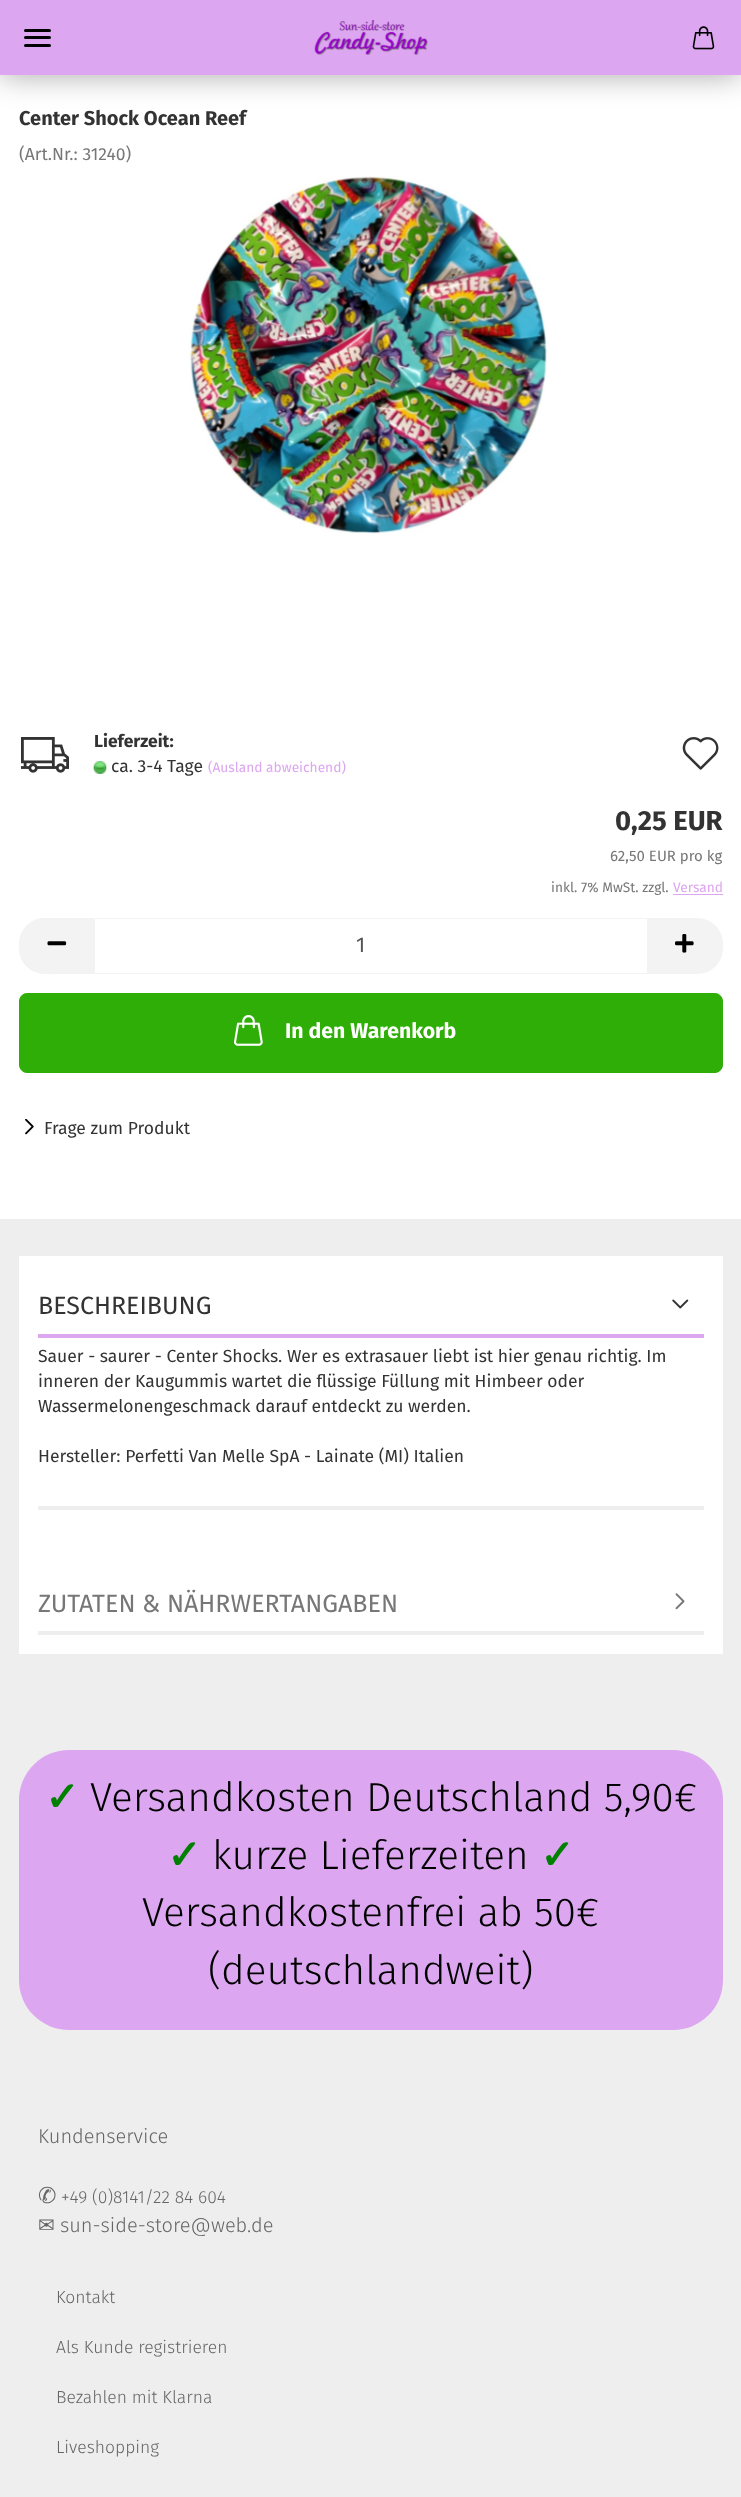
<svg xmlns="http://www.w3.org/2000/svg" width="741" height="2497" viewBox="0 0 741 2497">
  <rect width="100%" height="100%" fill="#fff"/>
  <path d="M0 0h741v75H0z" fill="#00000059" filter="blur(15.5px)"/>
  <path d="M0 0h741v75H0z" fill="#dda6f0"/>
  <image x="314" y="20" width="114" height="35" href="img/1.png"/>
  <image x="692" y="26" width="23" height="24" href="img/2.png"/>
  <rect x="24" y="36" width="27" height="3" rx="1.5" fill="#000"/>
  <rect x="24" y="29" width="27" height="3" rx="1.5" fill="#000"/>
  <rect x="24" y="44" width="27" height="3" rx="1.5" fill="#000"/>
  <image x="189" y="176" width="358" height="358" href="img/3.png"/>
  <image x="21" y="737" width="48" height="36" href="img/4.png"/>
  <image x="93" y="761" width="14" height="13" href="img/5.png"/>
  <image x="682" y="737" width="37" height="33" href="img/6.png"/>
  <path d="M673 894h50v1H673z" fill="#dda6f0"/>
  <path d="M45 918H94V974H45C30.5 974 19 962.5 19 948V944C19 929.5 30.5 918 45 918Z" fill="#f3f3f3"/>
  <path d="M45 918H94V974H61C53 974 43 975 35 972C9 961 16 918 45 918ZM45 919H94V972H61C53 972 43 974 35 971C10 960 17 919 45 919Z" fill="#f3f3f3" fill-rule="evenodd"/>
  <image x="47" y="941" width="20" height="5" href="img/7.png"/>
  <path d="M94.5 918.5h553v55H94.5z" fill="none" stroke="#f3f3f3"/>
  <path d="M648 918H697C711.5 918 723 929.5 723 944V948C723 962.5 711.5 974 697 974H648Z" fill="#f3f3f3"/>
  <image x="675" y="934" width="19" height="19" href="img/8.png"/>
  <rect x="19.5" y="993.5" width="703" height="79" rx="7.5" fill="#2eae06" stroke="#2eae06"/>
  <image x="234" y="1015" width="29" height="31" href="img/9.png"/>
  <image x="25" y="1119" width="9" height="16" href="img/10.png"/>
  <path d="M0 1219h741v1278H0z" fill="#eee"/>
  <path d="M19 1256h704v398H19z" fill="#fff"/>
  <path d="M38 1334h666v4H38z" fill="#dda6f0"/>
  <image x="672" y="1299" width="17" height="10" href="img/11.png"/>
  <path d="M38 1506h666v4H38z" fill="#eee"/>
  <path d="M38 1631h666v4H38z" fill="#eee"/>
  <image x="675" y="1593" width="10" height="17" href="img/12.png"/>
  <rect x="19" y="1750" width="704" height="280" rx="50" fill="#dda6f0"/>
  <text x="19" y="125" font-family="Fira Sans" font-size="20" font-weight="bold" fill="#333">Center Shock Ocean Reef</text>
  <text x="19" y="160" font-family="Fira Sans" font-size="17.5" fill="#777">(Art.Nr.: 31240)</text>
  <text x="94" y="747" font-family="Fira Sans" font-size="17.5" font-weight="bold" fill="#333">Lieferzeit:</text>
  <text x="111" y="772" font-family="Fira Sans" font-size="17.5" fill="#333">ca. 3-4 Tage</text>
  <text x="208" y="772" font-family="Fira Sans" font-size="13.75" fill="#dda6f0">(Ausland abweichend)</text>
  <text x="615" y="830" font-family="Fira Sans" font-size="27.5" font-weight="bold" fill="#333">0,25 EUR</text>
  <text x="610" y="861" font-family="Fira Sans" font-size="15" fill="#777">62,50 EUR pro kg</text>
  <text x="551" y="892" font-family="Fira Sans" font-size="13.75" fill="#777">inkl. 7% MwSt. zzgl.</text>
  <text x="673" y="892" font-family="Fira Sans" font-size="13.75" fill="#dda6f0">Versand</text>
  <text x="356" y="952" font-family="Fira Sans" font-size="21.25" fill="#555">1</text>
  <text x="285" y="1038" font-family="Fira Sans" font-size="21.25" font-weight="bold" fill="#fff">In den Warenkorb</text>
  <text x="44" y="1134" font-family="Fira Sans" font-size="17.5" fill="#333">Frage zum Produkt</text>
  <text x="38" y="1314" font-family="Fira Sans" font-size="25" fill="#333">BESCHREIBUNG</text>
  <g font-family="Fira Sans" font-size="17.5" fill="#333">
    <text x="38" y="1362">Sauer - saurer - Center Shocks. Wer es extrasauer liebt ist hier genau richtig. Im</text>
    <text x="38" y="1387">inneren der Kaugummis wartet die flüssige Füllung mit Himbeer oder</text>
    <text x="38" y="1412">Wassermelonengeschmack darauf entdeckt zu werden.</text>
    <text x="38" y="1462">Hersteller: Perfetti Van Melle SpA - Lainate (MI) Italien</text>
  </g>
  <text x="38" y="1612" font-family="Fira Sans" font-size="25" fill="#777">ZUTATEN &amp; NÄHRWERTANGABEN</text>
  <text x="45" y="1811" font-family="DejaVu Sans" font-size="40.5" font-weight="bold" fill="#008000">✓</text>
  <text x="90" y="1811" font-family="Fira Sans" font-size="40.5" font-weight="300" fill="#000">Versandkosten Deutschland 5,90€</text>
  <text x="167" y="1869" font-family="DejaVu Sans" font-size="40.5" font-weight="bold" fill="#008000">✓</text>
  <text x="212" y="1869" font-family="Fira Sans" font-size="40.5" font-weight="300" fill="#000">kurze Lieferzeiten</text>
  <text x="540" y="1869" font-family="DejaVu Sans" font-size="40.5" font-weight="bold" fill="#008000">✓</text>
  <g font-family="Fira Sans" font-size="40.5" font-weight="300" fill="#000">
    <text x="142" y="1926">Versandkostenfrei ab 50€</text>
    <text x="208" y="1984">(deutschlandweit)</text>
  </g>
  <text x="38" y="2143" font-family="Fira Sans" font-size="20" font-weight="300" fill="#666">Kundenservice</text>
  <text x="38" y="2203" font-family="DejaVu Sans" font-size="22" fill="#666">✆</text>
  <text x="61" y="2203" font-family="Fira Sans" font-size="17.5" font-weight="300" fill="#666">+49 (0)8141/22 84 604</text>
  <text x="38" y="2232" font-family="DejaVu Sans" font-size="20" fill="#666">✉</text>
  <text x="60" y="2232" font-family="Fira Sans" font-size="20" font-weight="300" fill="#666">sun-side-store@web.de</text>
  <g font-family="Fira Sans" font-size="17.5" font-weight="300" fill="#666">
    <text x="56" y="2303">Kontakt</text>
    <text x="56" y="2353">Als Kunde registrieren</text>
    <text x="56" y="2403">Bezahlen mit Klarna</text>
    <text x="56" y="2453">Liveshopping</text>
  </g>
</svg>
